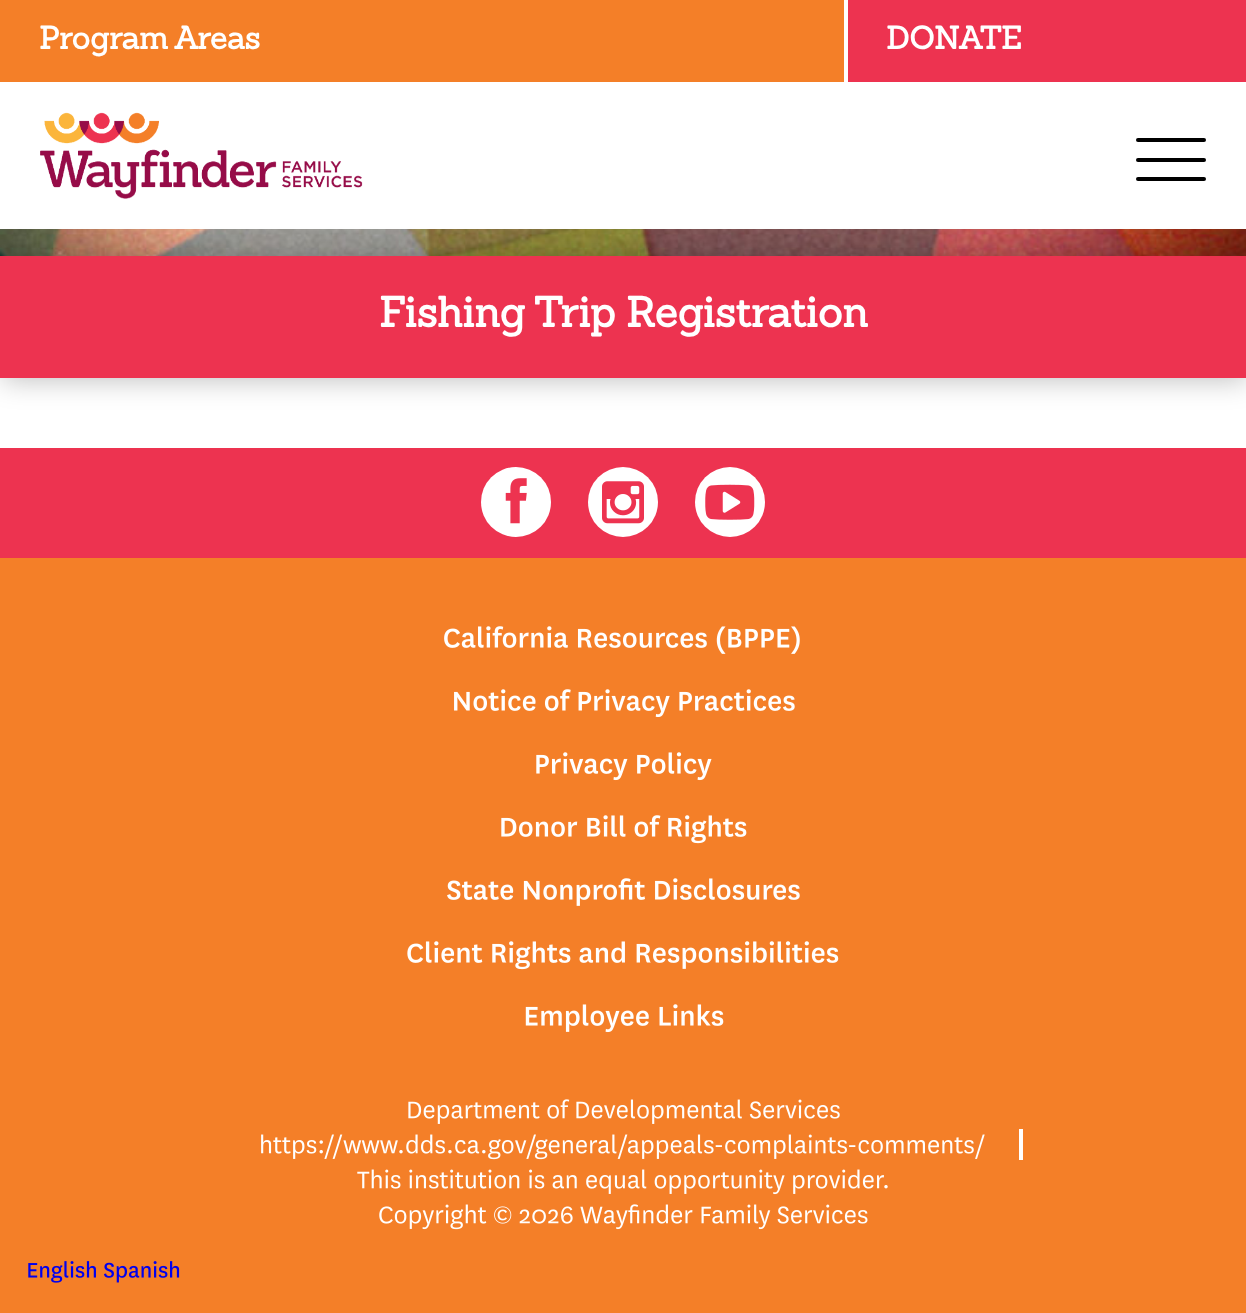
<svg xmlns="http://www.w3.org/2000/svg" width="1246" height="1313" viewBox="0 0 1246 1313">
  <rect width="100%" height="100%" fill="#fff"/>
  <path d="M0 0h844v82H0z" fill="#f47f28"/>
  <path d="M848 0h398v82H848z" fill="#ed3350"/>
  <image x="40" y="112" width="323" height="87" href="img/1.png"/>
  <rect x="1136" y="138" width="70" height="4" rx="2" fill="#000"/>
  <rect x="1136" y="158" width="70" height="4" rx="2" fill="#000"/>
  <rect x="1136" y="177" width="70" height="4" rx="2" fill="#000"/>
  <image x="0" y="229" width="1246" height="27" href="img/2.png"/>
  <path d="M2 257h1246v123H2z" fill="#00000040" filter="blur(14px)"/>
  <path d="M0 256h1246v122H0z" fill="#ed3350"/>
  <path d="M0 448h1246v110H0z" fill="#ed3350"/>
  <circle cx="516" cy="502" r="35" fill="#fff"/>
  <image x="505" y="478" width="22" height="46" href="img/3.png"/>
  <circle cx="623" cy="502" r="35" fill="#fff"/>
  <image x="602" y="481" width="42" height="43" href="img/4.png"/>
  <circle cx="730" cy="502" r="35" fill="#fff"/>
  <image x="705" y="484" width="50" height="36" href="img/5.png"/>
  <path d="M0 558h1246v755H0z" fill="#f47f28"/>
  <image x="444" y="626" width="356" height="28" href="img/6.png"/>
  <image x="454" y="689" width="341" height="28" href="img/7.png"/>
  <image x="536" y="752" width="176" height="29" href="img/8.png"/>
  <image x="501" y="815" width="246" height="29" href="img/9.png"/>
  <image x="447" y="878" width="353" height="28" href="img/10.png"/>
  <image x="407" y="941" width="432" height="29" href="img/11.png"/>
  <image x="525" y="1004" width="199" height="29" href="img/12.png"/>
  <image x="408" y="1099" width="432" height="25" href="img/13.png"/>
  <image x="261" y="1134" width="724" height="26" href="img/14.png"/>
  <path d="M1019 1129h4v31H1019z" fill="#fff"/>
  <image x="357" y="1169" width="531" height="26" href="img/15.png"/>
  <image x="379" y="1204" width="489" height="26" href="img/16.png"/>
  <image x="28" y="1261" width="68" height="22" href="img/17.png"/>
  <image x="104" y="1261" width="76" height="22" href="img/18.png"/>
  <g font-family="Sanchez" font-size="31.5" font-weight="bold" fill="#fff">
    <text x="39" y="49">Program Areas</text>
    <text x="886" y="49">DONATE</text>
  </g>
  <text x="379" y="327" font-family="Sanchez" font-size="42" font-weight="bold" fill="#fff">Fishing Trip Registration</text>
</svg>
